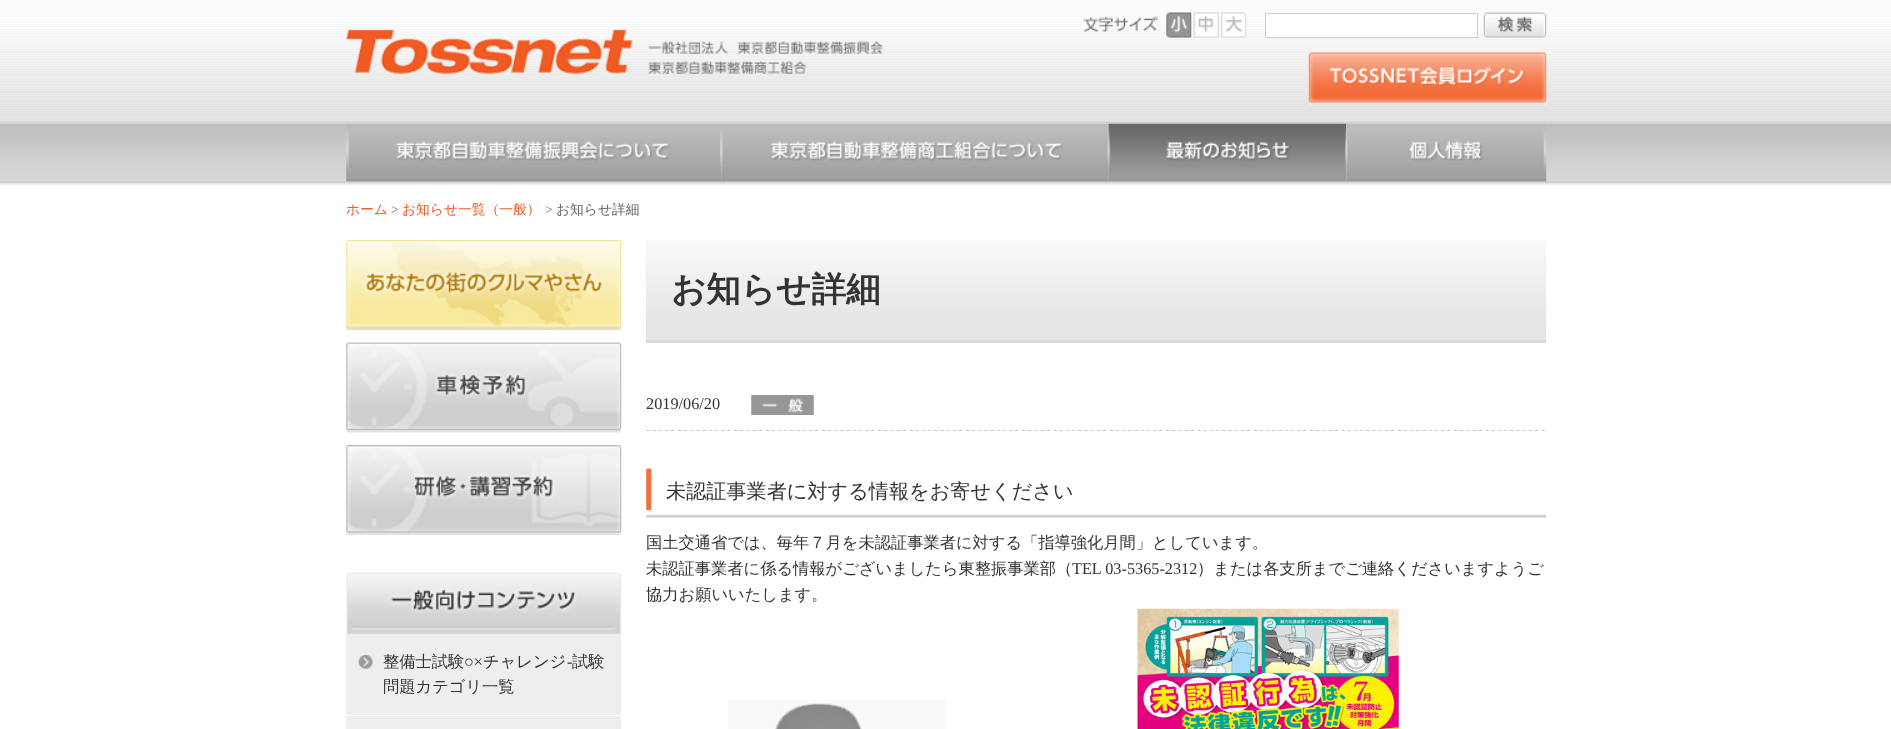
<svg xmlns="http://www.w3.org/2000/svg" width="1891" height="729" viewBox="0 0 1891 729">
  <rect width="100%" height="100%" fill="#fff"/>
  <image x="0" y="1" width="1891" height="123" href="img/1.png"/>
  <image x="346" y="29" width="537" height="45" href="img/2.png"/>
  <image x="1083" y="12" width="164" height="26" href="img/3.png"/>
  <image x="1166" y="12" width="26" height="26" href="img/4.png"/>
  <image x="1193" y="12" width="26" height="26" href="img/5.png"/>
  <image x="1221" y="12" width="26" height="26" href="img/6.png"/>
  <path d="M1265.5 13.5h212v24H1265.5z" fill="#fff" stroke="#ccc"/>
  <image x="1483" y="12" width="64" height="26" href="img/7.png"/>
  <image x="1308" y="52" width="239" height="53" href="img/8.png"/>
  <image x="0" y="123" width="1891" height="63" href="img/9.png"/>
  <image x="346" y="123" width="376" height="59" href="img/10.png"/>
  <image x="721" y="123" width="388" height="59" href="img/11.png"/>
  <image x="1108" y="123" width="239" height="59" href="img/12.png"/>
  <image x="1346" y="123" width="201" height="59" href="img/13.png"/>
  <path d="M646 240h900v100H646z" fill="#e5e5e5"/>
  <image x="646" y="240" width="901" height="87" href="img/14.png"/>
  <path d="M646 340h900v3H646z" fill="#d9d9d9"/>
  <path d="M646 430.5H1546" fill="none" stroke="#ccc" stroke-width="1.2" stroke-dasharray="3.75 2.51"/>
  <image x="751" y="395" width="63" height="20" href="img/15.png"/>
  <image x="646" y="468" width="901" height="50" href="img/16.png"/>
  <image x="728" y="700" width="218" height="29" href="img/17.png"/>
  <image x="1137" y="608" width="262" height="121" href="img/18.png"/>
  <image x="346" y="240" width="276" height="90" href="img/19.png"/>
  <image x="346" y="342" width="276" height="91" href="img/20.png"/>
  <image x="346" y="445" width="276" height="90" href="img/21.png"/>
  <image x="346" y="572" width="276" height="63" href="img/22.png"/>
  <path d="M346 635h275v80H346z" fill="#eee"/>
  <image x="358" y="655" width="15" height="14" href="img/23.png"/>
  <path d="M346 716h275v13H346z" fill="#eee"/>
  <text x="346" y="214" font-family="WenQuanYi Zen Hei" font-size="13.75" font-weight="500" fill="#f05a23">ホーム</text>
  <text x="391" y="214" font-family="Liberation Serif" font-size="13.75" fill="#666">&gt;</text>
  <text x="402" y="214" font-family="WenQuanYi Zen Hei" font-size="13.75" font-weight="500" fill="#f05a23">お知らせ一覧（一般）</text>
  <text x="545" y="214" font-family="Liberation Serif" font-size="13.75" fill="#666">&gt;</text>
  <text x="556" y="214" font-family="WenQuanYi Zen Hei" font-size="13.75" font-weight="500" fill="#666">お知らせ詳細</text>
  <text x="671" y="301" font-family="WenQuanYi Zen Hei" font-size="34.5" font-weight="bold" fill="#333">お知らせ詳細</text>
  <text x="646" y="409" font-family="Liberation Serif" font-size="16.25" fill="#333">2019/06/20</text>
  <text x="666" y="498" font-family="WenQuanYi Zen Hei" font-size="20.15" font-weight="500" fill="#333">未認証事業者に対する情報をお寄せください</text>
  <g font-family="WenQuanYi Zen Hei" font-size="16.25" font-weight="500" fill="#333">
    <text x="646" y="548">国土交通省では、毎年７月を未認証事業者に対する「指導強化月間」としています。</text>
    <text x="646" y="574">未認証事業者に係る情報がございましたら東整振事業部（</text>
  </g>
  <text x="1072" y="574" font-family="Liberation Serif" font-size="16.25" fill="#333">TEL 03-5365-2312</text>
  <g font-family="WenQuanYi Zen Hei" font-size="16.25" font-weight="500" fill="#333">
    <text x="1197" y="574">）または各支所までご連絡くださいますようご</text>
    <text x="646" y="600">協力お願いいたします。</text>
    <text x="383" y="667">整備士試験</text>
  </g>
  <text x="464" y="667" font-family="Liberation Serif" font-size="16.25" fill="#333">○×</text>
  <text x="483" y="667" font-family="WenQuanYi Zen Hei" font-size="16.25" font-weight="500" fill="#333">チャレンジ</text>
  <text x="567" y="667" font-family="Liberation Serif" font-size="16.25" fill="#333">-</text>
  <g font-family="WenQuanYi Zen Hei" font-size="16.25" font-weight="500" fill="#333">
    <text x="572" y="667">試験</text>
    <text x="383" y="692">問題カテゴリ一覧</text>
  </g>
</svg>
